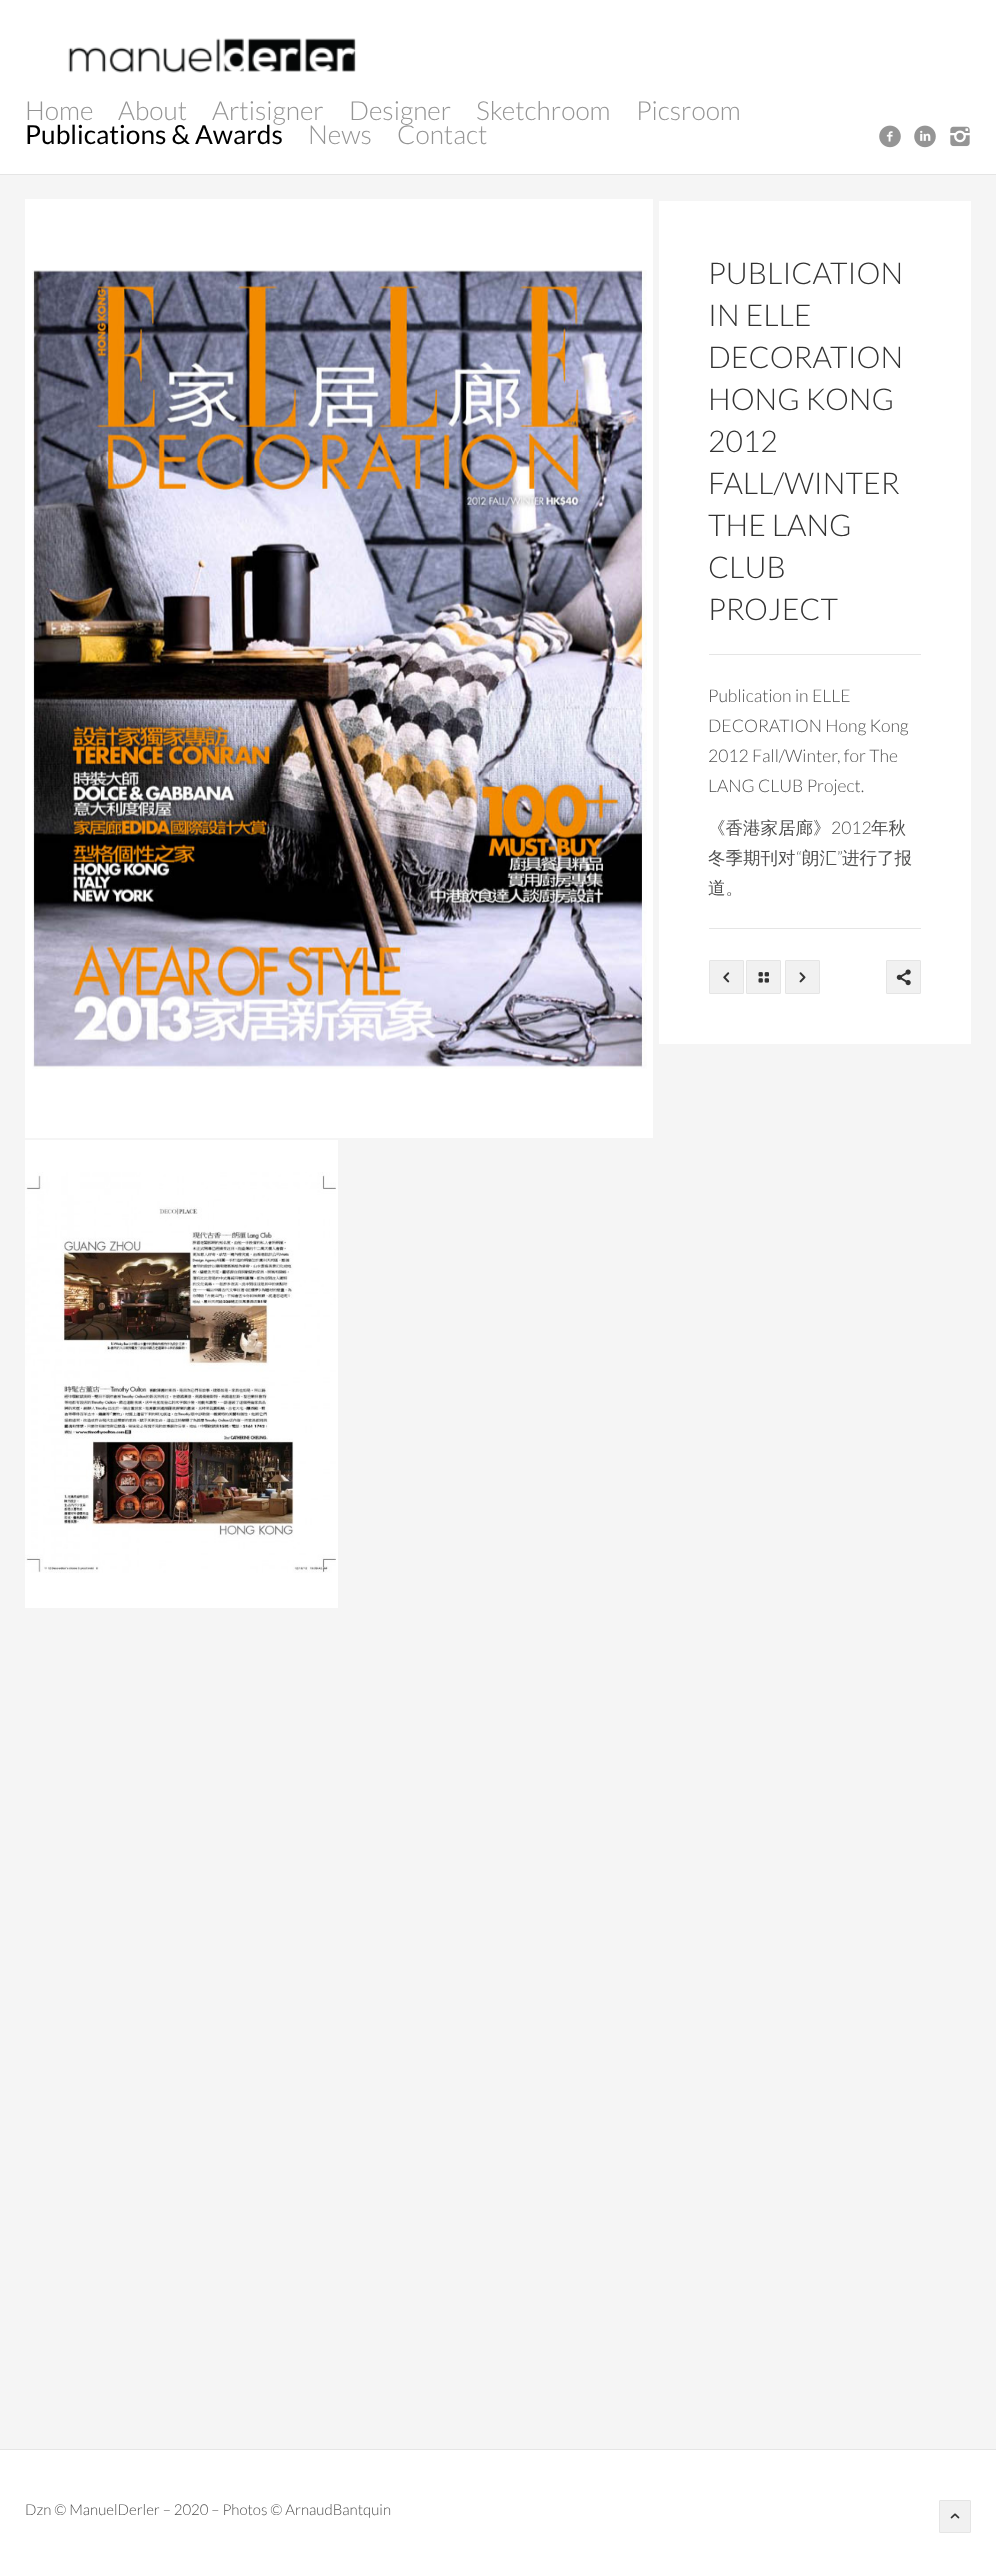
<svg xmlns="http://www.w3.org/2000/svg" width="996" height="2569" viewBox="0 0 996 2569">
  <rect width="100%" height="100%" fill="#f5f5f5"/>
  <path d="M0 174h996v1H0z" fill="#e5e5e5"/>
  <path d="M0 0h996v174H0z" fill="#fff"/>
  <image x="68" y="38" width="288" height="35" href="img/1.png"/>
  <image x="879" y="125" width="22" height="23" href="img/2.png"/>
  <image x="914" y="125" width="22" height="23" href="img/3.png"/>
  <image x="950" y="126" width="20" height="21" href="img/4.png"/>
  <path d="M25 199h628v939H25z" fill="#fff"/>
  <image x="32" y="270" width="615" height="799" href="img/5.png"/>
  <path d="M25 1140h313v468H25z" fill="#fff"/>
  <image x="25" y="1172" width="311" height="401" href="img/6.png"/>
  <path d="M659 201h312v843H659z" fill="#fff"/>
  <path d="M709 654h212v1H709z" fill="#e5e5e5"/>
  <path d="M709 928h212v1H709z" fill="#e5e5e5"/>
  <rect x="709.5" y="960.5" width="34" height="33" rx="0.5" fill="#f1f1f1" stroke="#e5e5e5"/>
  <image x="723" y="972" width="7" height="11" href="img/7.png"/>
  <rect x="746.5" y="960.5" width="34" height="33" rx="0.5" fill="#f1f1f1" stroke="#e5e5e5"/>
  <image x="758" y="972" width="11" height="11" href="img/8.png"/>
  <rect x="785.5" y="960.5" width="34" height="33" rx="0.5" fill="#f1f1f1" stroke="#e5e5e5"/>
  <image x="799" y="972" width="7" height="11" href="img/9.png"/>
  <rect x="886.5" y="960.5" width="34" height="33" rx="0.5" fill="#f1f1f1" stroke="#e5e5e5"/>
  <image x="896" y="969" width="15" height="17" href="img/10.png"/>
  <path d="M0 2450h996v119H0z" fill="#fff"/>
  <path d="M0 2449h996v1H0z" fill="#e5e5e5"/>
  <rect x="939.5" y="2500.5" width="31" height="32" rx="0.5" fill="#f1f1f1" stroke="#e5e5e5"/>
  <image x="950" y="2513" width="10" height="6" href="img/11.png"/>
  <g font-family="Lato" font-size="26.25" font-weight="300" fill="#959595">
    <text x="25" y="120">Home</text>
    <text x="118" y="120">About</text>
    <text x="212" y="120">Artisigner</text>
    <text x="349" y="120">Designer</text>
    <text x="476" y="120">Sketchroom</text>
    <text x="636" y="120">Picsroom</text>
  </g>
  <text x="25" y="144" font-family="Lato" font-size="26.25" fill="#000">Publications &amp; Awards</text>
  <g font-family="Lato" font-size="26.25" font-weight="300" fill="#959595">
    <text x="308" y="144">News</text>
    <text x="397" y="144">Contact</text>
  </g>
  <g font-family="Lato" font-size="30" font-weight="300" fill="#333">
    <text x="708" y="284">PUBLICATION</text>
    <text x="708" y="326">IN ELLE</text>
    <text x="708" y="368">DECORATION</text>
    <text x="708" y="410">HONG KONG</text>
    <text x="708" y="452">2012</text>
    <text x="708" y="494">FALL/WINTER</text>
    <text x="708" y="536">THE LANG</text>
    <text x="708" y="578">CLUB</text>
    <text x="708" y="620">PROJECT</text>
  </g>
  <g font-family="Lato" font-size="17.5" font-weight="300" fill="#515151">
    <text x="708" y="702">Publication in ELLE</text>
    <text x="708" y="732">DECORATION Hong Kong</text>
    <text x="708" y="762">2012 Fall/Winter, for The</text>
    <text x="708" y="792">LANG CLUB Project.</text>
  </g>
  <text x="708" y="834" font-family="WenQuanYi Zen Hei" font-size="17.5" font-weight="500" fill="#515151">《香港家居廊》</text>
  <text x="831" y="834" font-family="Lato" font-size="17.5" font-weight="300" fill="#515151">2012</text>
  <g font-family="WenQuanYi Zen Hei" font-size="17.5" font-weight="500" fill="#515151">
    <text x="871" y="834">年秋</text>
    <text x="708" y="864">冬季期刊对</text>
  </g>
  <text x="796" y="864" font-family="Lato" font-size="17.5" font-weight="300" fill="#515151">“</text>
  <text x="802" y="864" font-family="WenQuanYi Zen Hei" font-size="17.5" font-weight="500" fill="#515151">朗汇</text>
  <text x="837" y="864" font-family="Lato" font-size="17.5" font-weight="300" fill="#515151">”</text>
  <g font-family="WenQuanYi Zen Hei" font-size="17.5" font-weight="500" fill="#515151">
    <text x="842" y="864">进行了报</text>
    <text x="708" y="894">道。</text>
  </g>
  <text x="25" y="2515" font-family="Lato" font-size="15" font-weight="300" fill="#515151">Dzn © ManuelDerler – 2020 – Photos © ArnaudBantquin</text>
</svg>
